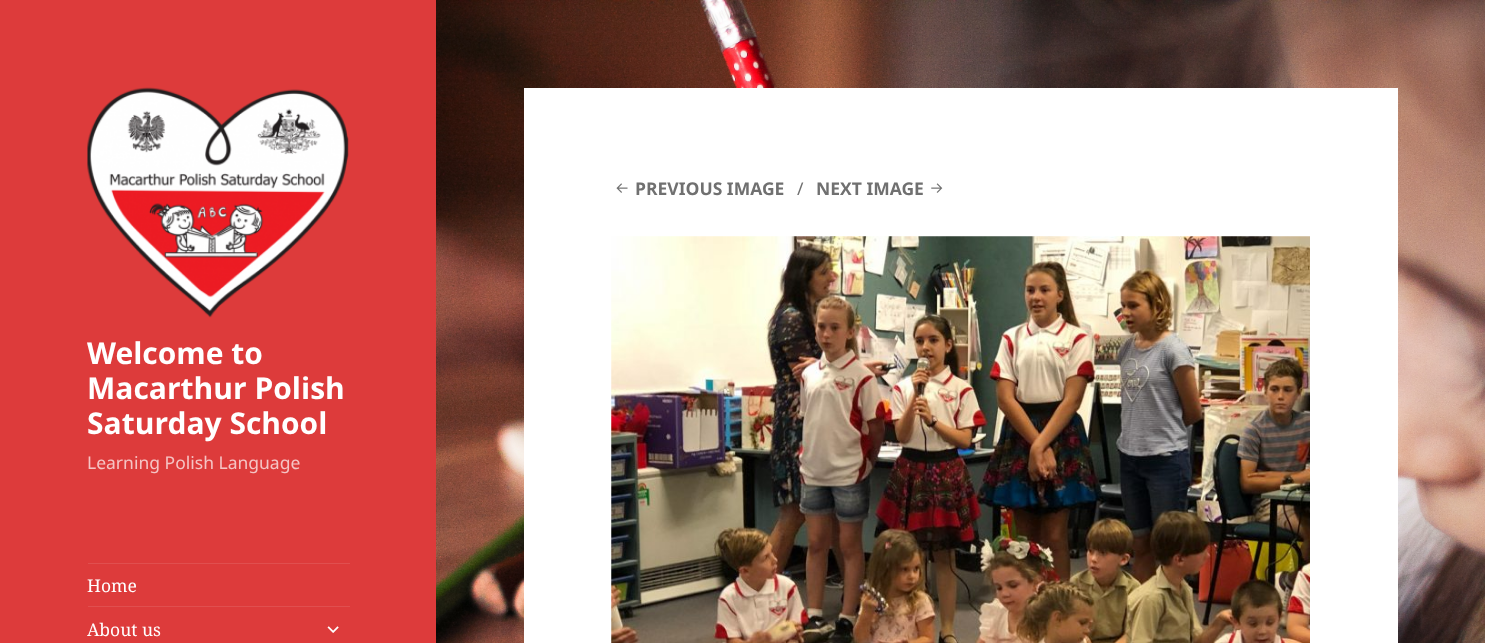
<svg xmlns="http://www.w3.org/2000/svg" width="1485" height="643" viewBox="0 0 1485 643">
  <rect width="100%" height="100%" fill="#fff"/>
  <image x="436" y="0" width="1049" height="643" href="img/1.png"/>
  <path d="M0 0h436v643H0z" fill="#dd3b3b"/>
  <path d="M524 88h874v555H524z" fill="#fff"/>
  <image x="616" y="183" width="12" height="10" href="img/2.png"/>
  <image x="931" y="183" width="12" height="10" href="img/3.png"/>
  <image x="611" y="236" width="699" height="407" href="img/4.png"/>
  <image x="87" y="87" width="262" height="231" href="img/5.png"/>
  <path d="M88 563h262v1H88z" fill="#e04f4f"/>
  <path d="M88 606h262v1H88z" fill="#e04f4f"/>
  <image x="327" y="626" width="12" height="7" href="img/6.png"/>
  <text x="635" y="195" font-family="Noto Sans" font-size="17.5" font-weight="bold" fill="#707070">PREVIOUS IMAGE</text>
  <text x="797" y="195" font-family="Noto Sans" font-size="17.5" fill="#707070">∕</text>
  <text x="816" y="195" font-family="Noto Sans" font-size="17.5" font-weight="bold" fill="#707070">NEXT IMAGE</text>
  <g font-family="Noto Sans" font-size="30" font-weight="bold" fill="#fff">
    <text x="87" y="364">Welcome to</text>
    <text x="87" y="399">Macarthur Polish</text>
    <text x="87" y="434">Saturday School</text>
  </g>
  <text x="87" y="469" font-family="Noto Sans" font-size="17.5" fill="#f5c4c4">Learning Polish Language</text>
  <g font-family="Noto Serif" font-size="17.5" fill="#fff">
    <text x="87" y="592">Home</text>
    <text x="87" y="636">About us</text>
  </g>
</svg>
